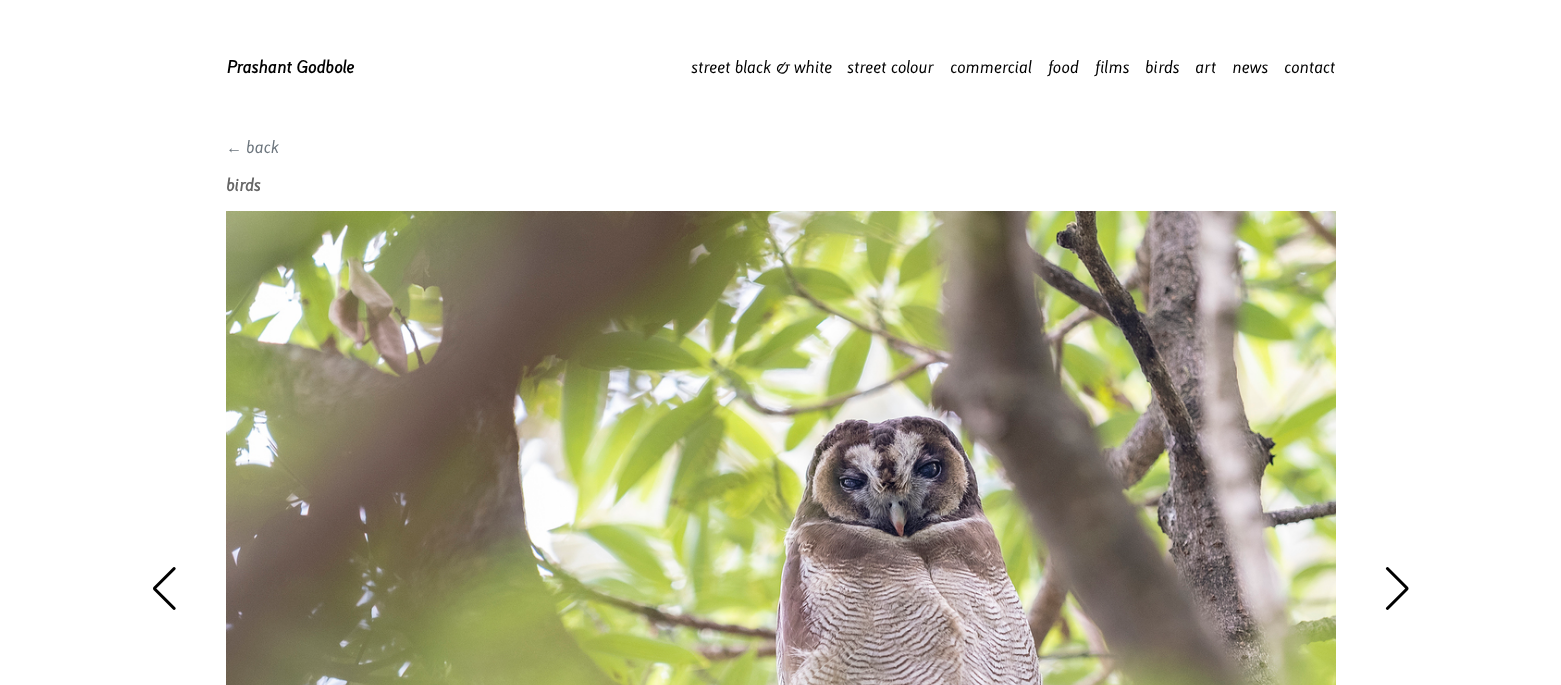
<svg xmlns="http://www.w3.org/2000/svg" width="1561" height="685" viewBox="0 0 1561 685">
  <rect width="100%" height="100%" fill="#fff"/>
  <image x="153" y="567" width="23" height="43" href="img/1.png"/>
  <image x="226" y="211" width="1110" height="474" href="img/2.png"/>
  <image x="1385" y="567" width="24" height="43" href="img/3.png"/>
  <text x="226" y="73" font-family="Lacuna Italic" font-size="16" font-weight="bold" font-style="italic" fill="#000">Prashant Godbole</text>
  <g font-family="Lacuna Italic" font-size="16" font-style="italic" fill="#000">
    <text x="691" y="73">street black &amp; white</text>
    <text x="847" y="73">street colour</text>
    <text x="950" y="73">commercial</text>
    <text x="1048" y="73">food</text>
    <text x="1095" y="73">films</text>
    <text x="1145" y="73">birds</text>
    <text x="1195" y="73">art</text>
    <text x="1232" y="73">news</text>
    <text x="1284" y="73">contact</text>
  </g>
  <text x="226" y="153" font-family="Liberation Sans" font-size="16" font-style="italic" fill="#6c757d">←</text>
  <text x="246" y="153" font-family="Lacuna Italic" font-size="16" font-style="italic" fill="#6c757d">back</text>
  <text x="226" y="191" font-family="Lacuna Italic" font-size="16" font-weight="bold" font-style="italic" fill="#666">birds</text>
</svg>
